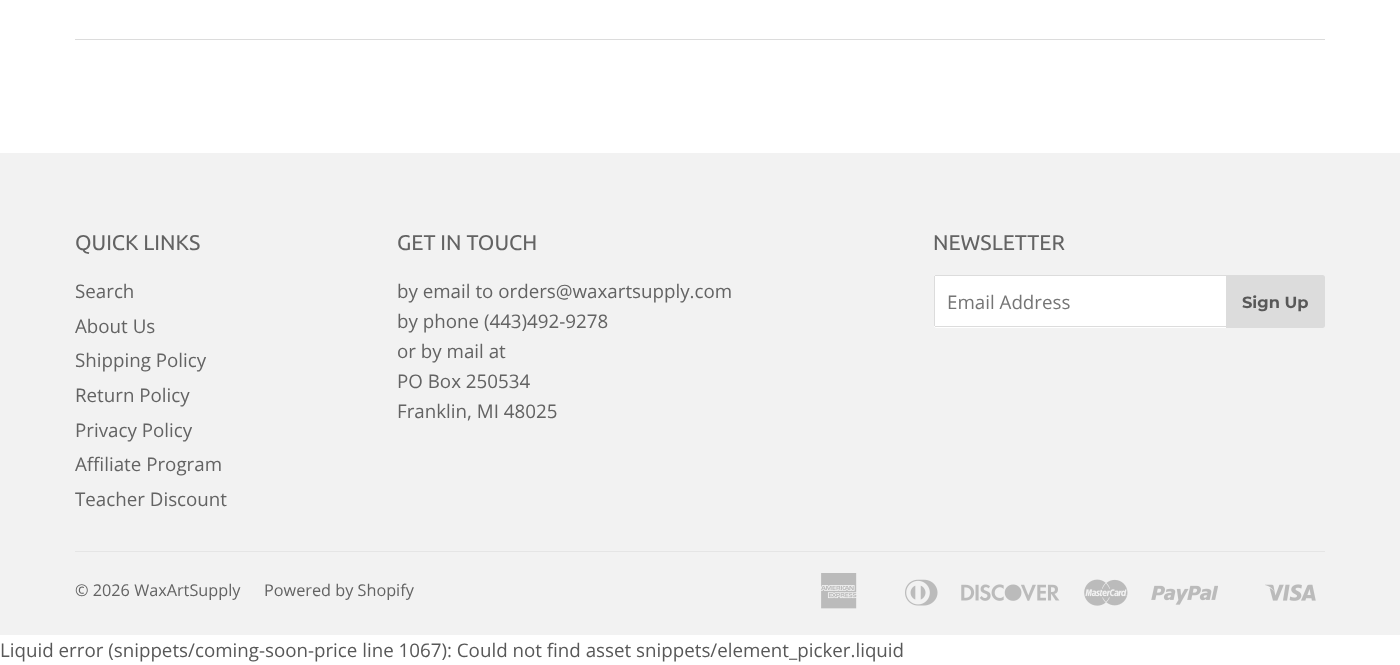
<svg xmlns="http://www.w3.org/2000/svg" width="1400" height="665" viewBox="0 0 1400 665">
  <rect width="100%" height="100%" fill="#fff"/>
  <path d="M75 39h1250v1H75z" fill="#dcdcdc"/>
  <path d="M0 153h1400v482H0z" fill="#f2f2f2"/>
  <path d="M936.5 275H1226V328H936.5C935 328 934 327 934 325.5V277.5C934 276 935 275 936.5 275Z" fill="#fff"/>
  <path d="M935 275h291v1H935z" fill="#dcdcdc"/>
  <path d="M935 326h291v1H935z" fill="#dcdcdc"/>
  <path d="M934 276h1v50H934z" fill="#dcdcdc"/>
  <path d="M1226 275H1322.5C1324 275 1325 276 1325 277.5V325.5C1325 327 1324 328 1322.5 328H1226Z" fill="#dcdcdc"/>
  <path d="M75 551h1250v1H75z" fill="#e5e5e5"/>
  <image x="821" y="573" width="36" height="36" href="img/1.png"/>
  <image x="905" y="579" width="33" height="27" href="img/2.png"/>
  <image x="961" y="584" width="99" height="17" href="img/3.png"/>
  <image x="1084" y="579" width="44" height="27" href="img/4.png"/>
  <image x="1151" y="585" width="67" height="20" href="img/5.png"/>
  <image x="1265" y="584" width="51" height="17" href="img/6.png"/>
  <text x="75" y="250" font-family="Ubuntu" font-size="21.25" fill="#636363">QUICK LINKS</text>
  <g font-family="Open Sans" font-size="18.75" fill="#636363">
    <text x="75" y="298">Search</text>
    <text x="75" y="333">About Us</text>
    <text x="75" y="367">Shipping Policy</text>
    <text x="75" y="402">Return Policy</text>
    <text x="75" y="437">Privacy Policy</text>
    <text x="75" y="471">Affiliate Program</text>
    <text x="75" y="506">Teacher Discount</text>
  </g>
  <text x="397" y="250" font-family="Ubuntu" font-size="21.25" fill="#636363">GET IN TOUCH</text>
  <g font-family="Open Sans" font-size="18.75" fill="#636363">
    <text x="397" y="298">by email to orders@waxartsupply.com</text>
    <text x="397" y="328">by phone (443)492-9278</text>
    <text x="397" y="358">or by mail at</text>
    <text x="397" y="388">PO Box 250534</text>
    <text x="397" y="418">Franklin, MI 48025</text>
  </g>
  <text x="933" y="250" font-family="Ubuntu" font-size="21.25" fill="#636363">NEWSLETTER</text>
  <text x="947" y="309" font-family="Open Sans" font-size="18.75" fill="#757575">Email Address</text>
  <text x="1242" y="308" font-family="Montserrat" font-size="16.25" font-weight="100" fill="#585858">Sign Up</text>
  <g font-family="Open Sans" font-size="16.25" fill="#636363">
    <text x="75" y="596">© 2026 WaxArtSupply</text>
    <text x="264" y="596">Powered by Shopify</text>
  </g>
  <text x="0" y="657" font-family="Open Sans" font-size="18.75" fill="#585858">Liquid error (snippets/coming-soon-price line 1067): Could not find asset snippets/element_picker.liquid</text>
</svg>
